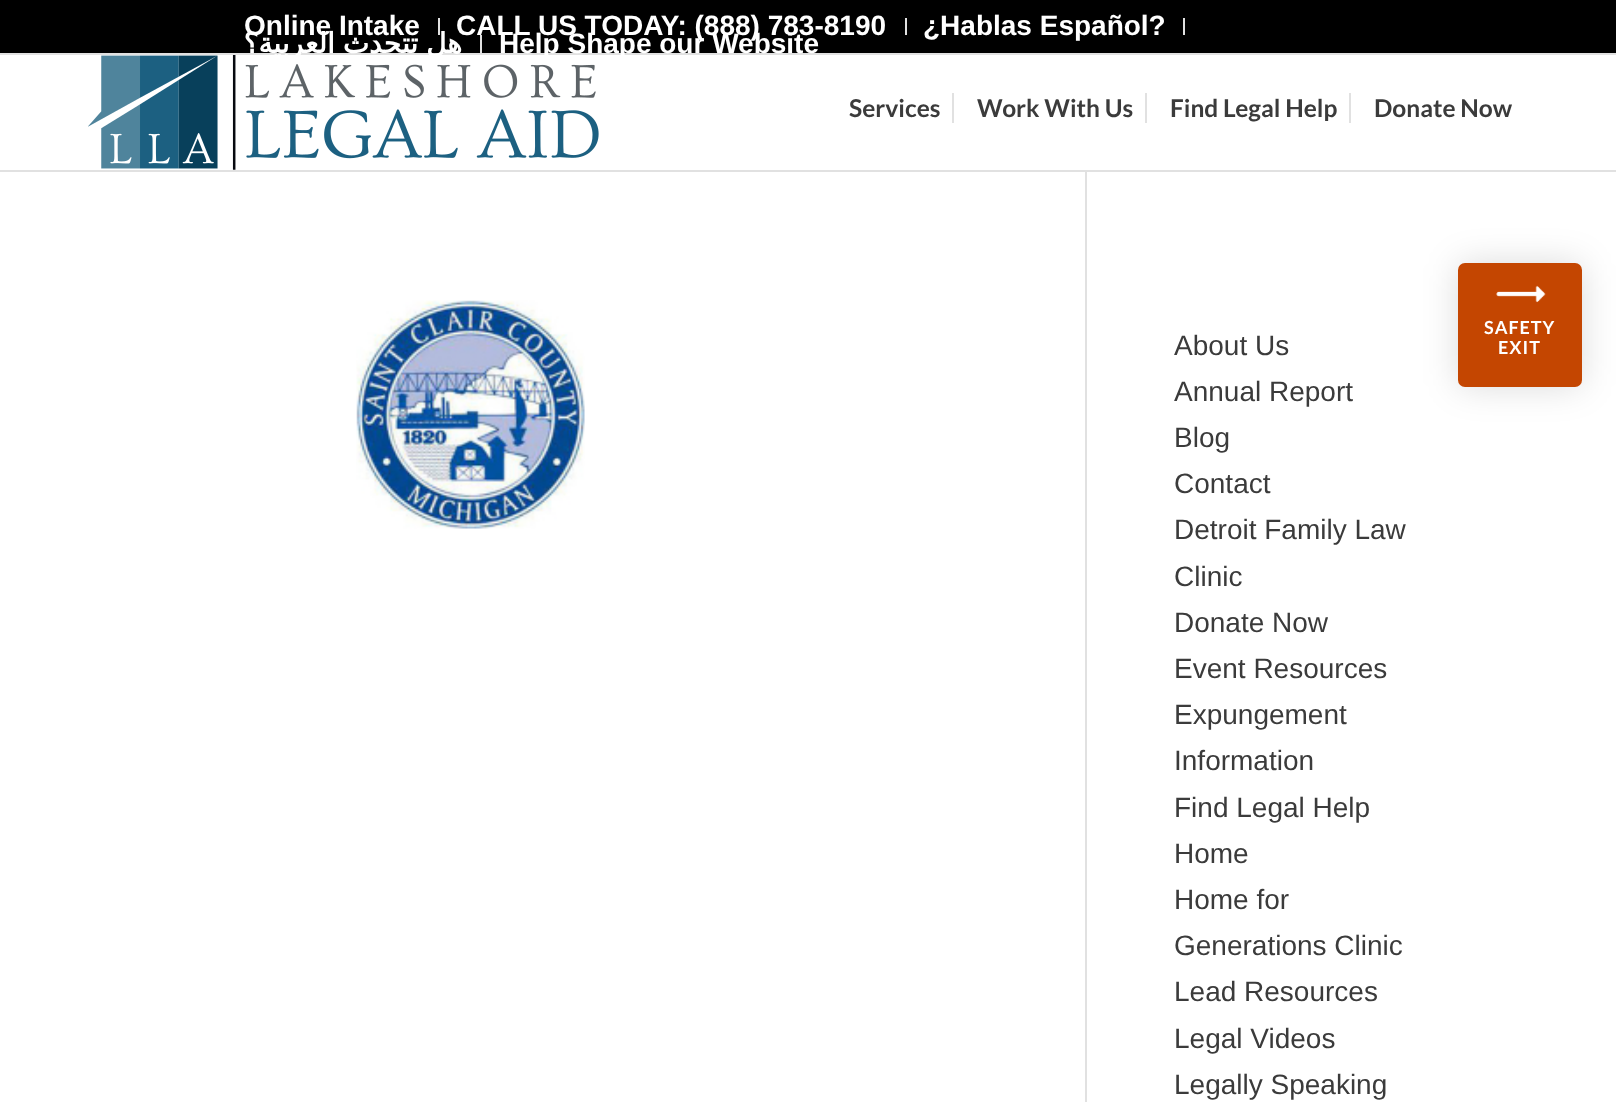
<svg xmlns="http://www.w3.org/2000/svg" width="1616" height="1102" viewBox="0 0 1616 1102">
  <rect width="100%" height="100%" fill="#fff"/>
  <path d="M0 0h1616v53H0z" fill="#000"/>
  <path d="M0 53h1616v2H0z" fill="#e1e1e1"/>
  <path d="M438 18h2v17H438z" fill="#e1e1e1"/>
  <path d="M905 18h2v17H905z" fill="#e1e1e1"/>
  <path d="M1183 18h2v17H1183z" fill="#e1e1e1"/>
  <path d="M0 170h1616v2H0z" fill="#e1e1e1"/>
  <image x="88" y="55" width="511" height="115" href="img/1.png"/>
  <path d="M952 93h2v30H952z" fill="#e1e1e1"/>
  <path d="M1145 93h2v30H1145z" fill="#e1e1e1"/>
  <path d="M1349 93h2v30H1349z" fill="#e1e1e1"/>
  <image x="356" y="300" width="229" height="229" href="img/2.png"/>
  <path d="M1085 172h2v930H1085z" fill="#e1e1e1"/>
  <rect x="1458" y="263" width="124" height="124" rx="7" fill="#00000024" filter="blur(17.5px)"/>
  <rect x="1458" y="263" width="124" height="124" rx="7" fill="#c44601"/>
  <image x="1496" y="285" width="50" height="18" href="img/3.png"/>
  <g font-family="Liberation Sans" font-size="28" font-weight="bold" fill="#fff">
    <text x="244" y="35">Online Intake</text>
    <text x="456" y="35">CALL US TODAY: (888) 783-8190</text>
    <text x="923" y="35">¿Hablas Español?</text>
  </g>
  <path d="M480 35h2v18H480z" fill="#e1e1e1"/>
  <text x="462" y="53" word-spacing="-1" font-family="DejaVu Sans" font-size="28" font-weight="bold" direction="rtl" fill="#fff">هل تتحدث العربية؟</text>
  <text x="499" y="53" font-family="Liberation Sans" font-size="28" font-weight="bold" fill="#fff">Help Shape our Website</text>
  <g font-family="Lato" font-size="24.5" font-weight="bold" fill="#3b3b3b">
    <text x="849" y="117">Services</text>
    <text x="977" y="117">Work With Us</text>
    <text x="1170" y="117">Find Legal Help</text>
    <text x="1374" y="117">Donate Now</text>
  </g>
  <g font-family="Liberation Sans" font-size="28" fill="#3b3b3b">
    <text x="1174" y="355">About Us</text>
    <text x="1174" y="401">Annual Report</text>
    <text x="1174" y="447">Blog</text>
    <text x="1174" y="493">Contact</text>
    <text x="1174" y="539">Detroit Family Law</text>
    <text x="1174" y="586">Clinic</text>
    <text x="1174" y="632">Donate Now</text>
    <text x="1174" y="678">Event Resources</text>
    <text x="1174" y="724">Expungement</text>
    <text x="1174" y="770">Information</text>
    <text x="1174" y="817">Find Legal Help</text>
    <text x="1174" y="863">Home</text>
    <text x="1174" y="909">Home for</text>
    <text x="1174" y="955">Generations Clinic</text>
    <text x="1174" y="1001">Lead Resources</text>
    <text x="1174" y="1048">Legal Videos</text>
    <text x="1174" y="1094">Legally Speaking</text>
  </g>
  <g font-family="Lato" font-size="18" font-weight="bold" letter-spacing="1" fill="#fff">
    <text x="1484" y="334">SAFETY</text>
    <text x="1498" y="354">EXIT</text>
  </g>
</svg>
